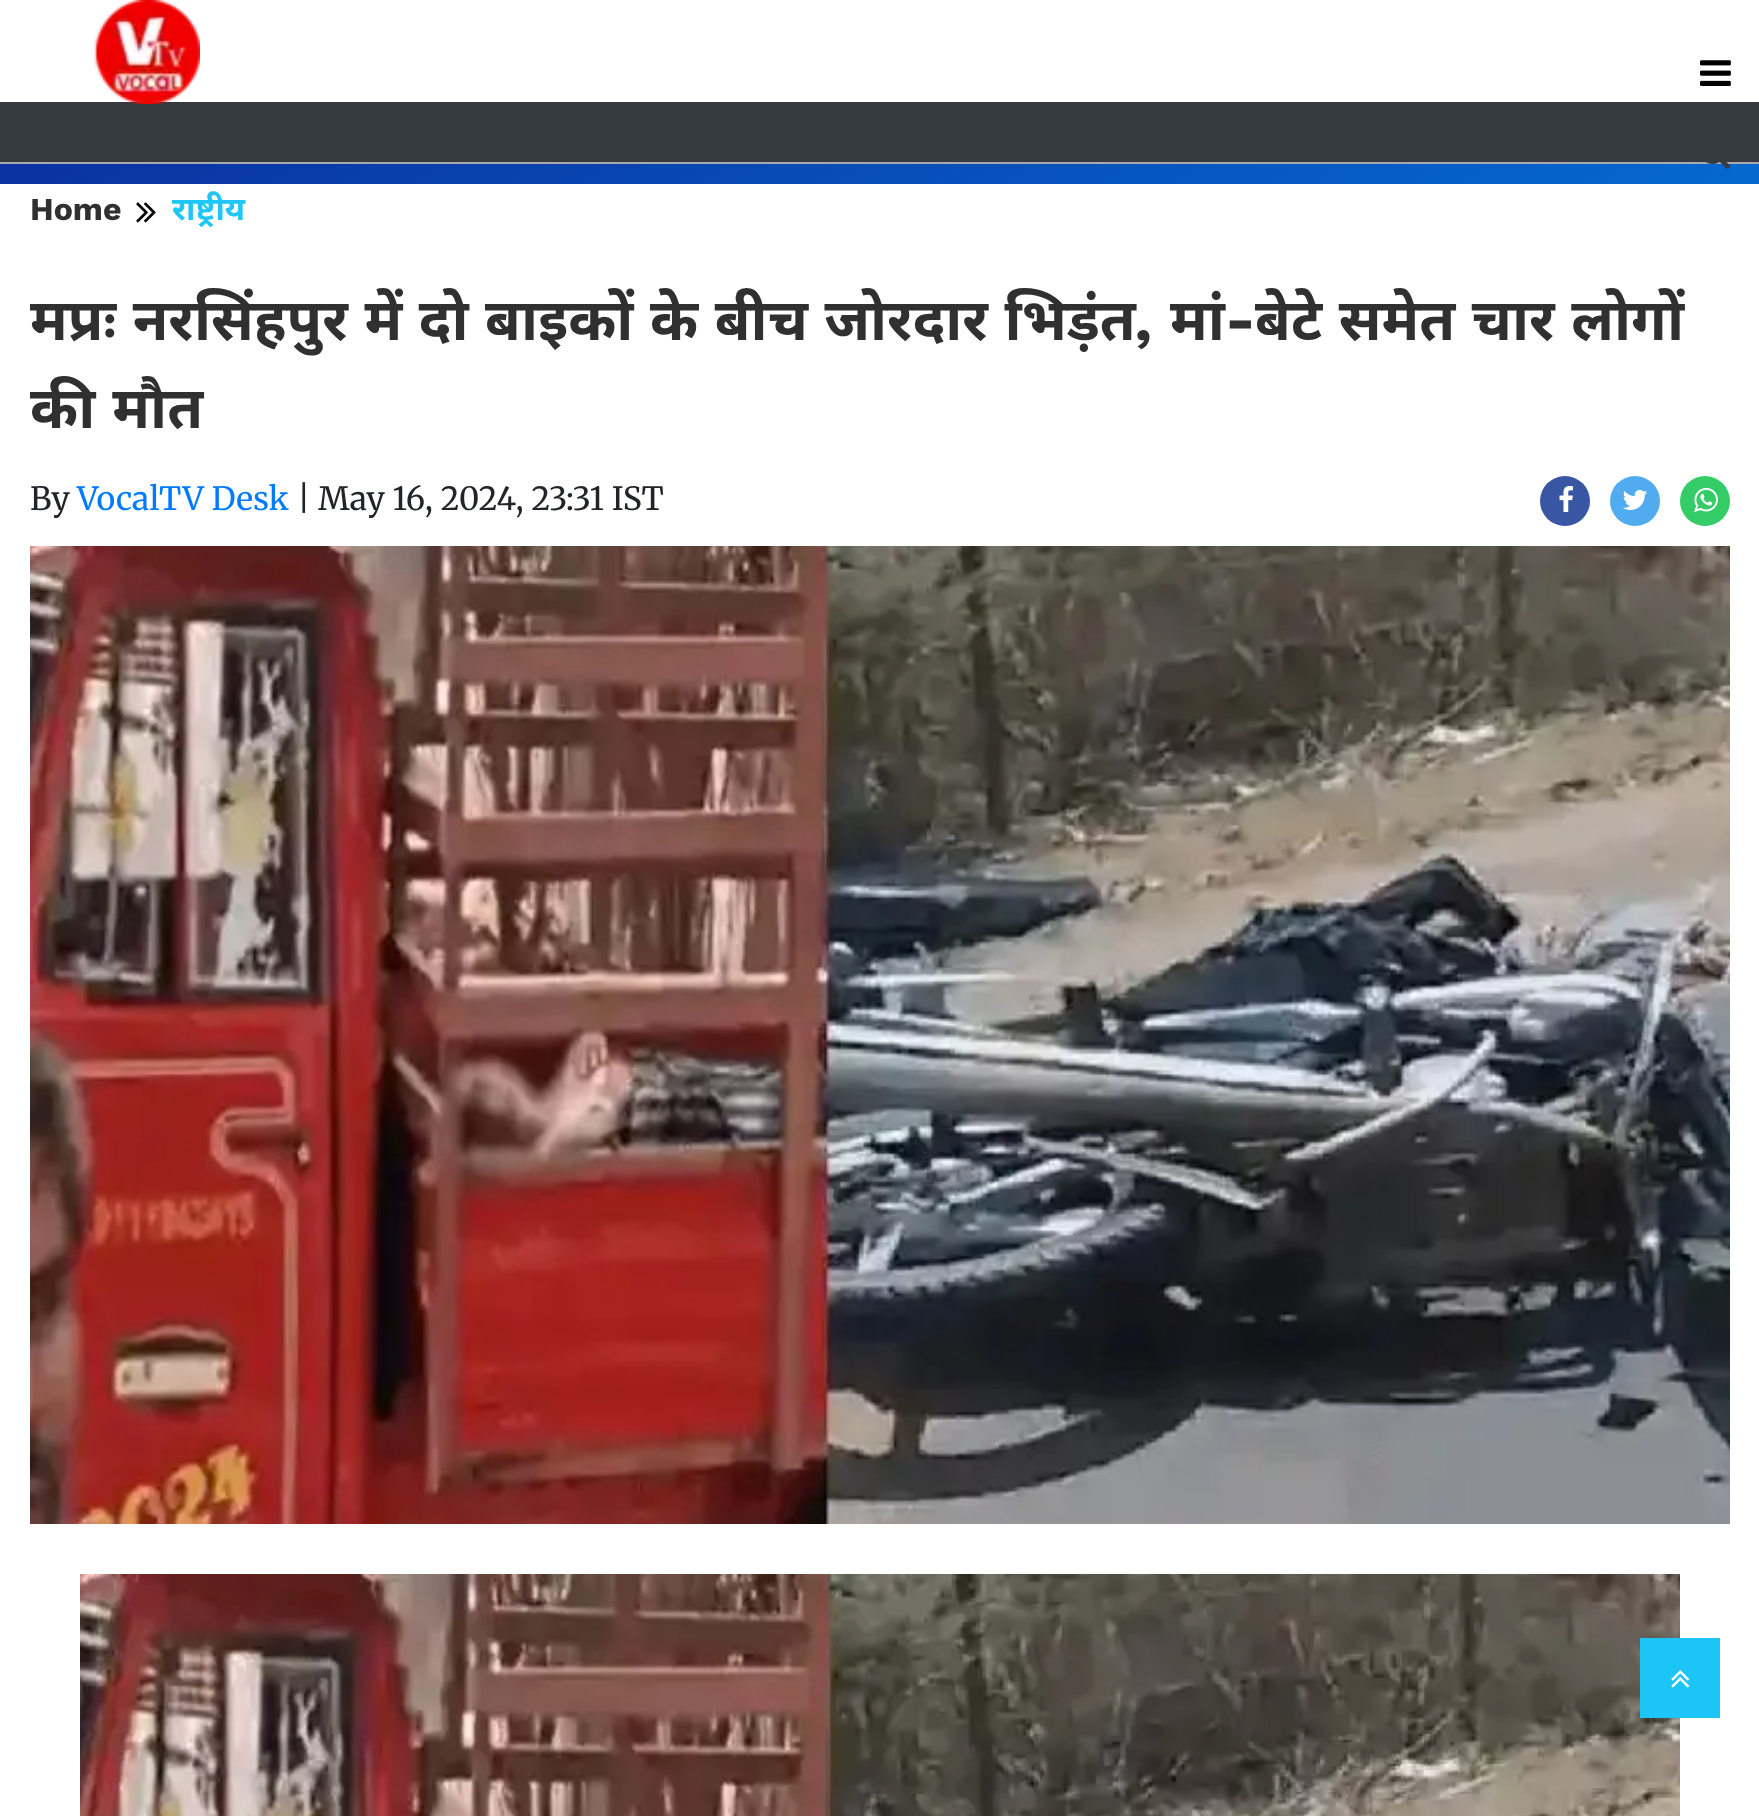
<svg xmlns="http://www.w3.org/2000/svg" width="1759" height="1816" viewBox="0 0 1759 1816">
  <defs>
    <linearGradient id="g1" gradientUnits="userSpaceOnUse" x1="443" y1="-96" x2="1317" y2="1416"><stop offset="0" stop-color="#0a32a0"/><stop offset="1" stop-color="#009bff"/></linearGradient>
  </defs>
  <rect width="100%" height="100%" fill="#fff"/>
  <path d="M0 162h1759v2H0z" fill="#a9a9a9"/>
  <path d="M0 102h1759v60H0z" fill="#343a40"/>
  <image x="94" y="0" width="106" height="104" href="img/1.png"/>
  <image x="1700" y="60" width="31" height="26" href="img/2.png"/>
  <path d="M0 164h1759v20H0z" fill="url(#g1)"/>
  <image x="1706" y="162" width="24" height="7" href="img/3.png"/>
  <image x="136" y="202" width="20" height="21" href="img/4.png"/>
  <circle cx="1565" cy="501" r="25" fill="#3956a5"/>
  <image x="1559" y="486" width="14" height="26" href="img/5.png"/>
  <circle cx="1635" cy="501" r="25" fill="#51acef"/>
  <image x="1622" y="490" width="26" height="20" href="img/6.png"/>
  <circle cx="1705" cy="501" r="25" fill="#3c6"/>
  <image x="1694" y="487" width="24" height="25" href="img/7.png"/>
  <image x="30" y="546" width="1700" height="978" href="img/8.png"/>
  <image x="80" y="1574" width="1600" height="242" href="img/9.png"/>
  <path d="M1640 1638h80v80H1640z" fill="#1dc4f6"/>
  <image x="1671" y="1670" width="19" height="18" href="img/10.png"/>
  <text x="30" y="220" font-family="Work Sans" font-size="32" font-weight="bold" fill="#303030">Home</text>
  <text x="172" y="220" font-family="Noto Sans" font-size="32" font-weight="bold" fill="#20c6f7">राष्ट्रीय</text>
  <g font-family="Noto Sans" font-size="58" font-weight="bold" fill="#303030">
    <text x="30" y="340" word-spacing="1.5">मप्रः नरसिंहपुर में दो बाइकों के बीच जोरदार भिड़ंत</text>
    <text x="1170" y="340">मां</text>
  </g>
  <text x="1225" y="340" font-family="Work Sans" font-size="58" font-weight="bold" fill="#303030">-</text>
  <text x="1255" y="340" word-spacing="1.5" font-family="Noto Sans" font-size="58" font-weight="bold" fill="#303030">बेटे समेत चार लोगों</text>
  <text x="1135" y="340" font-family="Work Sans" font-size="58" font-weight="bold" fill="#303030">,</text>
  <text x="30" y="428" word-spacing="2" font-family="Noto Sans" font-size="58" font-weight="bold" fill="#303030">की मौत</text>
  <text x="30" y="510" font-family="Merriweather" font-size="32" fill="#212529">By</text>
  <text x="77" y="510" font-family="Merriweather" font-size="32" fill="#007bff">VocalTV Desk</text>
  <text x="297" y="510" font-family="Merriweather" font-size="32" fill="#212529">| May 16, 2024, 23:31 IST</text>
</svg>
